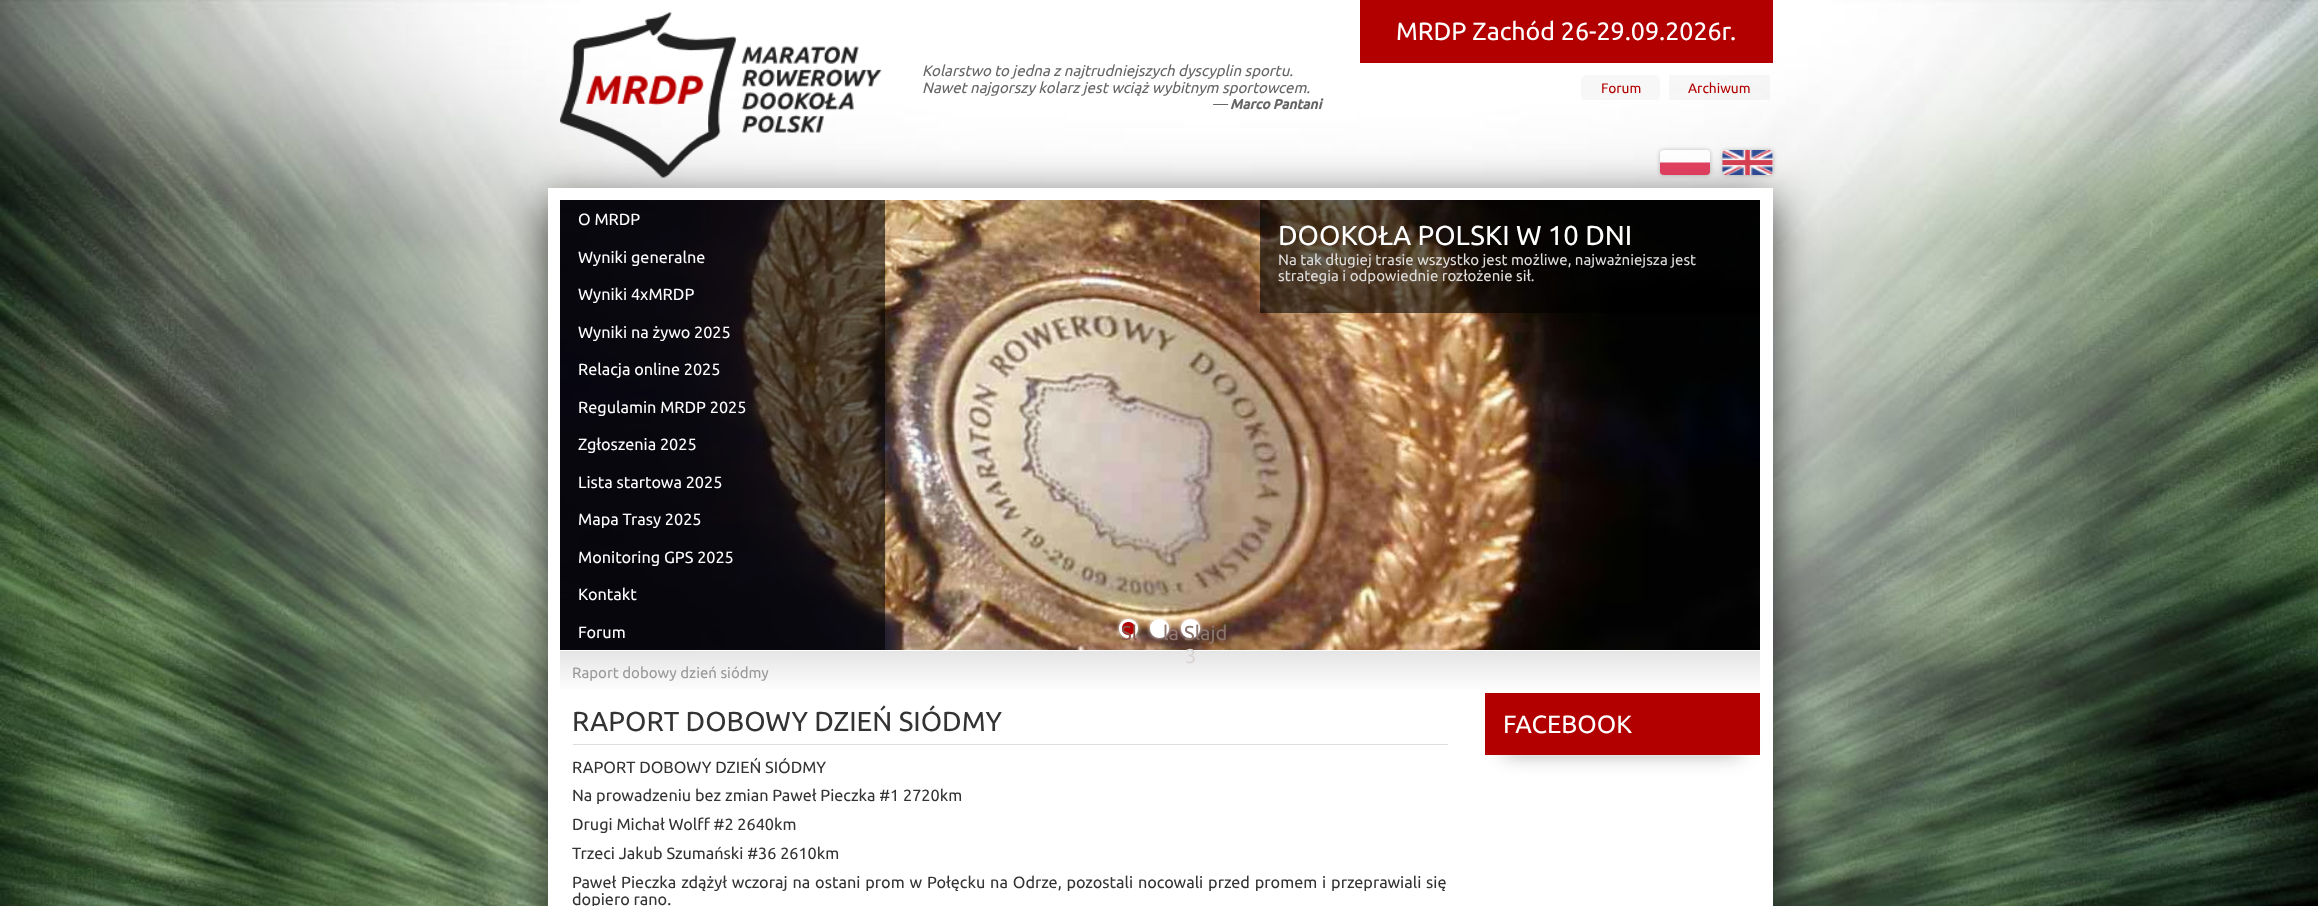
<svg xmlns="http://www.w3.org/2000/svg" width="2318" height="906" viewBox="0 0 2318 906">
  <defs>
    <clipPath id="clip1"><path d="M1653 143H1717V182H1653ZM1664 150H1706C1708 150 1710 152 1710 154V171C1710 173 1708 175 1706 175H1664C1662 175 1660 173 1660 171V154C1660 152 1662 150 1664 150Z" clip-rule="evenodd"/></clipPath>
    <clipPath id="clip2"><path d="M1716 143H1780V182H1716ZM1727 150H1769C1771 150 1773 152 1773 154V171C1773 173 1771 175 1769 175H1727C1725 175 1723 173 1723 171V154C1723 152 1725 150 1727 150Z" clip-rule="evenodd"/></clipPath>
    <linearGradient id="g1" gradientUnits="userSpaceOnUse" x1="1160" y1="651" x2="1160" y2="693"><stop offset="0" stop-color="#e5e5e5"/><stop offset="1" stop-color="#fff"/></linearGradient>
  </defs>
  <rect width="100%" height="100%" fill="#fff"/>
  <image x="0" y="0" width="2318" height="906" href="img/1.png"/>
  <path d="M548 200h1225v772H548z" fill="#000000b3" filter="blur(22px)"/>
  <image x="560" y="12" width="322" height="166" href="img/2.png"/>
  <path d="M1360 0h413v63H1360z" fill="#b20000"/>
  <rect x="1581" y="75" width="79" height="26" rx="6" fill="#f7f7f7"/>
  <path d="M1585 100h73v1H1585z" fill="#fff"/>
  <path d="M1669 75h101v25H1669z" fill="#00000008"/>
  <path d="M1750 100h18v1H1750z" fill="#fff"/>
  <g clip-path="url(#clip1)">
    <rect x="1660" y="150" width="50" height="25" rx="4" fill="#0000003d" filter="blur(2px)"/>
  </g>
  <image x="1660" y="150" width="50" height="25" href="img/3.png"/>
  <g clip-path="url(#clip2)">
    <rect x="1723" y="150" width="50" height="25" rx="4" fill="#0000003d" filter="blur(2px)"/>
  </g>
  <image x="1722" y="150" width="51" height="25" href="img/4.png"/>
  <path d="M548 188h1225v718H548z" fill="#fff"/>
  <image x="560" y="200" width="1200" height="450" href="img/5.png"/>
  <path d="M560 200h325v450H560z" fill="#00000099"/>
  <path d="M1260 200h500v113H1260z" fill="#00000099"/>
  <rect x="1119" y="619" width="19" height="19" rx="9" fill="#fff" filter="blur(2px)"/>
  <rect x="1120.5" y="620.5" width="16" height="16" rx="7.5" fill="#b20000" stroke="#fff" stroke-width="3"/>
  <rect x="1150" y="619" width="19" height="19" rx="9" fill="#fff" filter="blur(2px)"/>
  <rect x="1151.5" y="620.5" width="16" height="16" rx="7.5" fill="#fff" stroke="#fff" stroke-width="3"/>
  <rect x="1181" y="619" width="19" height="19" rx="9" fill="#fff" filter="blur(2px)"/>
  <rect x="1182.5" y="620.5" width="16" height="16" rx="7.5" fill="#fff" stroke="#fff" stroke-width="3"/>
  <path d="M560 651h1200v38H560z" fill="url(#g1)"/>
  <path d="M573 744h875v1H573z" fill="#ddd"/>
  <path d="M1504 730h237v25H1504z" fill="#0000004d" filter="blur(9.5px)"/>
  <path d="M1499 755h247v1H1499z" fill="#ffffff40"/>
  <path d="M1485 693h275v62H1485z" fill="#b20000"/>
  <text x="1396" y="40" font-family="Ubuntu" font-size="25" fill="#fff">MRDP Zachód 26-29.09.2026r.</text>
  <g font-family="Ubuntu" font-size="15" font-style="italic" fill="#666">
    <text x="922" y="76">Kolarstwo to jedna z najtrudniejszych dyscyplin sportu.</text>
    <text x="922" y="93">Nawet najgorszy kolarz jest wciąż wybitnym sportowcem.</text>
    <text x="1212" y="109">—</text>
  </g>
  <text x="1230" y="109" font-family="Ubuntu" font-size="13.75" font-weight="bold" font-style="italic" fill="#666">Marco Pantani</text>
  <g font-family="Ubuntu" font-size="13.75" fill="#b20000">
    <text x="1601" y="93">Forum</text>
    <text x="1688" y="93">Archiwum</text>
  </g>
  <g font-family="Ubuntu" font-size="16.25" fill="#fff">
    <text x="578" y="225">O MRDP</text>
    <text x="578" y="263">Wyniki generalne</text>
    <text x="578" y="300">Wyniki 4xMRDP</text>
    <text x="578" y="338">Wyniki na żywo 2025</text>
    <text x="578" y="375">Relacja online 2025</text>
    <text x="578" y="413">Regulamin MRDP 2025</text>
    <text x="578" y="450">Zgłoszenia 2025</text>
    <text x="578" y="488">Lista startowa 2025</text>
    <text x="578" y="525">Mapa Trasy 2025</text>
    <text x="578" y="563">Monitoring GPS 2025</text>
    <text x="578" y="600">Kontakt</text>
    <text x="578" y="638">Forum</text>
  </g>
  <text x="1278" y="245" font-family="Ubuntu" font-size="27.5" fill="#fff">DOOKOŁA POLSKI W 10 DNI</text>
  <g font-family="Ubuntu" font-size="15" fill="#dedddc">
    <text x="1278" y="265">Na tak długiej trasie wszystko jest możliwe, najważniejsza jest</text>
    <text x="1278" y="281">strategia i odpowiednie rozłożenie sił.</text>
  </g>
  <text x="1121" y="640" font-family="Ubuntu" font-size="20" fill="#8b5549">Sl</text>
  <text x="1163" y="640" font-family="Ubuntu" font-size="20" fill="#927871">la</text>
  <text x="1184" y="640" font-family="Ubuntu" font-size="20" fill="#8c766c">Slajd</text>
  <text x="1185" y="663" font-family="Ubuntu" font-size="20" fill="#d8d4d2">3</text>
  <text x="572" y="678" font-family="Ubuntu" font-size="15" fill="#999">Raport dobowy dzień siódmy</text>
  <text x="572" y="731" font-family="Ubuntu" font-size="27.5" fill="#333">RAPORT DOBOWY DZIEŃ SIÓDMY</text>
  <g font-family="Ubuntu" font-size="16.25" fill="#333">
    <text x="572" y="773">RAPORT DOBOWY DZIEŃ SIÓDMY</text>
    <text x="572" y="801">Na prowadzeniu bez zmian Paweł Pieczka #1 2720km</text>
    <text x="572" y="830">Drugi Michał Wolff #2 2640km</text>
    <text x="572" y="859">Trzeci Jakub Szumański #36 2610km</text>
    <text x="572" y="888" word-spacing="1.1">Paweł Pieczka zdążył wczoraj na ostani prom w Połęcku na Odrze, pozostali nocowali przed promem i przeprawiali się</text>
    <text x="572" y="905">dopiero rano.</text>
  </g>
  <text x="1503" y="733" font-family="Ubuntu" font-size="25" fill="#fff">FACEBOOK</text>
</svg>
